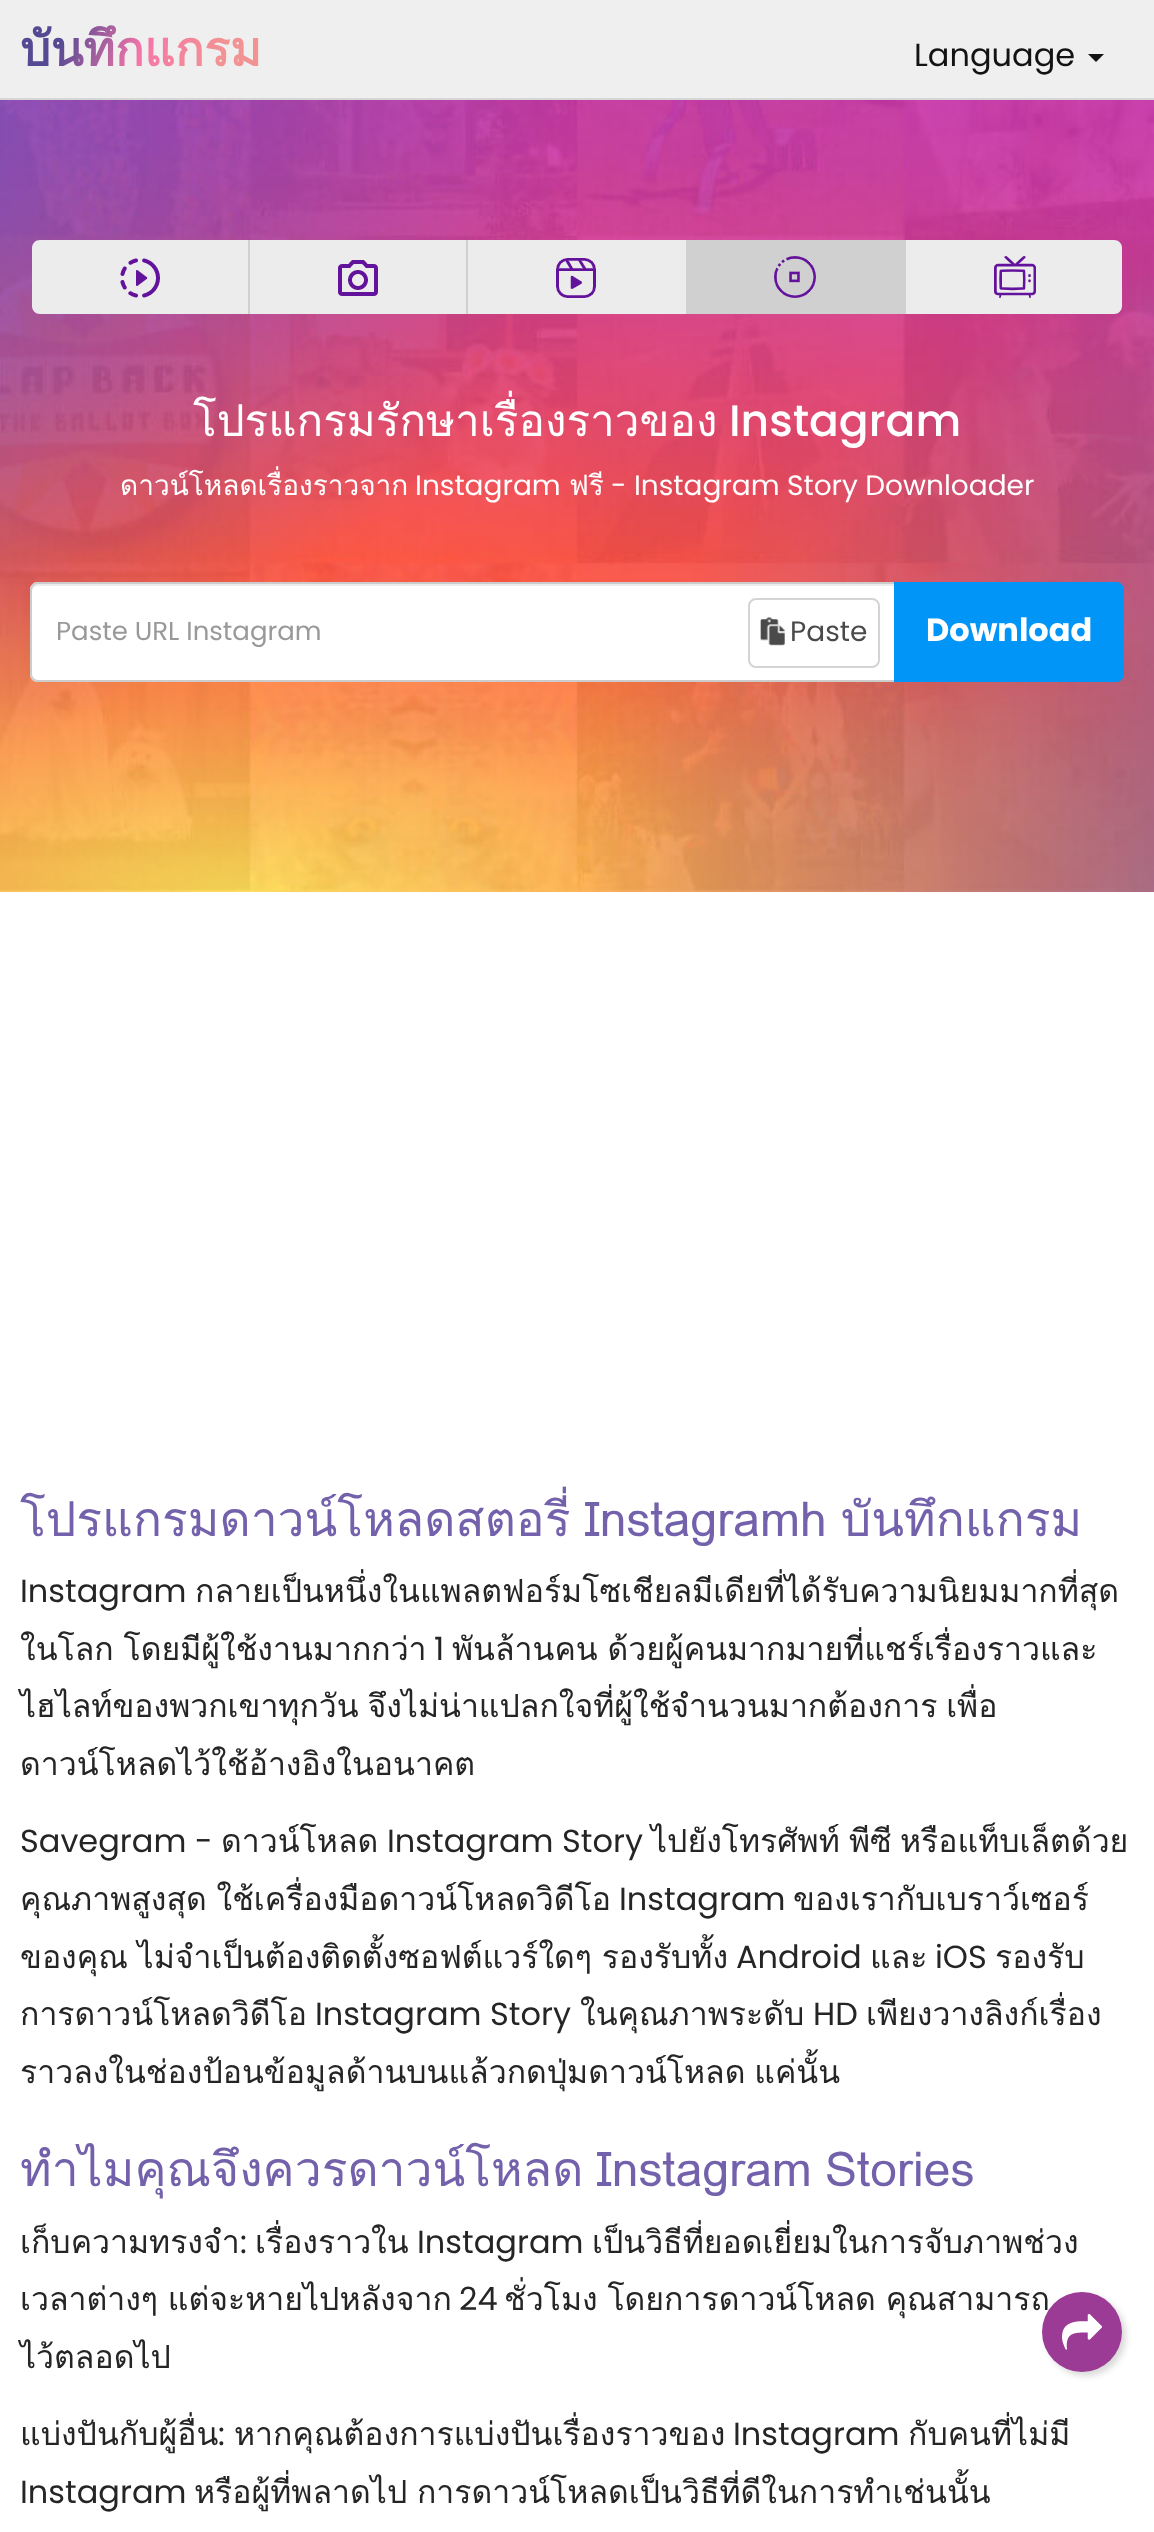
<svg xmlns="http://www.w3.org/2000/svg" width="1154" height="2532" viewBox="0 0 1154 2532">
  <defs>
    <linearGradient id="g1" gradientUnits="userSpaceOnUse" x1="262" y1="101" x2="20" y2="3.1"><stop offset="0.22" stop-color="#f29393"/><stop offset="0.5" stop-color="#f675a8"/><stop offset="0.8" stop-color="#554994"/></linearGradient>
  </defs>
  <rect width="100%" height="100%" fill="#fff"/>
  <path d="M0 0h1154v98H0z" fill="#efefef"/>
  <path d="M0 98h1154v2H0z" fill="#d6d6d6"/>
  <path d="M1088 54H1104L1096 62Z" fill="#131313"/>
  <image x="0" y="100" width="1154" height="792" href="img/1.png"/>
  <path d="M40 240H250V314H40C35.5 314 32 310.5 32 306V248C32 243.5 35.5 240 40 240Z" fill="#ececec"/>
  <path d="M248 240h2v74H248z" fill="#d0d0d0"/>
  <image x="120" y="258" width="40" height="40" href="img/2.png"/>
  <path d="M250 240h216v74H250z" fill="#ececec"/>
  <path d="M466 240h2v74H466z" fill="#d0d0d0"/>
  <image x="338" y="260" width="40" height="36" href="img/3.png"/>
  <path d="M468 240h218v74H468z" fill="#ececec"/>
  <path d="M686 240h220v74H686z" fill="#d0d0d0"/>
  <image x="556" y="258" width="40" height="40" href="img/4.png"/>
  <path d="M906 240H1114C1118.5 240 1122 243.5 1122 248V306C1122 310.5 1118.5 314 1114 314H906Z" fill="#ececec"/>
  <image x="994" y="256" width="42" height="42" href="img/5.png"/>
  <image x="774" y="256" width="42" height="42" href="img/6.png"/>
  <path d="M38 582H896V682H38C33.5 682 30 678.5 30 674V590C30 585.5 33.5 582 38 582Z" fill="#fff"/>
  <path d="M38 586H894V584H38C33 584 32 588 32 592C32 589 35 586 38 586Z" fill="#ececec"/>
  <path d="M38 583H895V681H38C34 681 31 678 31 674V590C31 586 34 583 38 583Z" fill="none" stroke="#ccc" stroke-width="2"/>
  <rect x="749" y="599" width="130" height="68" rx="7" fill="none" stroke="#d4d4d4" stroke-width="2"/>
  <image x="760" y="617" width="25" height="29" href="img/7.png"/>
  <path d="M894 582H1116C1120.5 582 1124 585.5 1124 590V674C1124 678.5 1120.5 682 1116 682H894Z" fill="#0095f6"/>
  <rect x="1046" y="2296" width="80" height="80" rx="40" fill="#00000026" filter="blur(3px)"/>
  <text x="20" y="66" font-family="Loma" font-size="48" font-weight="bold" fill="url(#g1)">บันทึกแกรม</text>
  <text x="914" y="66" font-family="Poppins" font-size="32" fill="#131313">Language</text>
  <text x="193" y="436" font-family="Loma" font-size="44" fill="#fff">โปรแกรมรักษาเรื่องราวของ</text>
  <text x="729" y="436" font-family="Poppins" font-size="44" font-weight="500" fill="#fff">Instagram</text>
  <text x="120" y="495" font-family="Loma" font-size="28" fill="#fff">ดาวน์โหลดเรื่องราวจาก</text>
  <text x="415" y="495" font-family="Poppins" font-size="28" fill="#fff">Instagram</text>
  <text x="569" y="495" font-family="Loma" font-size="28" fill="#fff">ฟรี</text>
  <text x="611" y="495" font-family="Poppins" font-size="28" fill="#fff">- Instagram Story Downloader</text>
  <text x="56" y="640" font-family="Poppins" font-size="26" fill="#999">Paste URL Instagram</text>
  <text x="790" y="641" font-family="Poppins" font-size="28" fill="#4a4a4a">Paste</text>
  <text x="926" y="641" font-family="Poppins" font-size="32" font-weight="bold" fill="#fff">Download</text>
  <text x="20" y="1536" word-spacing="-2" font-family="Loma" font-size="48" fill="#7361ab">โปรแกรมดาวน์โหลดสตอรี่ Instagramh บันทึกแกรม</text>
  <text x="20" y="1602" font-family="Poppins" font-size="32" fill="#252525">Instagram</text>
  <g font-family="Loma" font-size="32" fill="#252525">
    <text x="195" y="1602">กลายเป็นหนึ่งในแพลตฟอร์มโซเชียลมีเดียที่ได้รับความนิยมมากที่สุด</text>
    <text x="20" y="1660" word-spacing="-1">ในโลก โดยมีผู้ใช้งานมากกว่า</text>
  </g>
  <text x="434" y="1660" font-family="Poppins" font-size="32" fill="#252525">1</text>
  <g font-family="Loma" font-size="32" fill="#252525">
    <text x="452" y="1660" word-spacing="-1">พันล้านคน ด้วยผู้คนมากมายที่แชร์เรื่องราวและ</text>
    <text x="20" y="1717" word-spacing="-2">ไฮไลท์ของพวกเขาทุกวัน จึงไม่น่าแปลกใจที่ผู้ใช้จำนวนมากต้องการ เพื่อ</text>
    <text x="20" y="1775">ดาวน์โหลดไว้ใช้อ้างอิงในอนาคต</text>
  </g>
  <text x="20" y="1852" font-family="Poppins" font-size="32" fill="#252525">Savegram -</text>
  <text x="221" y="1852" font-family="Loma" font-size="32" fill="#252525">ดาวน์โหลด</text>
  <text x="387" y="1852" font-family="Poppins" font-size="32" fill="#252525">Instagram Story</text>
  <g font-family="Loma" font-size="32" fill="#252525">
    <text x="651" y="1852">ไปยังโทรศัพท์</text>
    <text x="849" y="1852">พีซี</text>
    <text x="900" y="1852">หรือแท็บเล็ตด้วย</text>
    <text x="20" y="1910" word-spacing="-1">คุณภาพสูงสุด ใช้เครื่องมือดาวน์โหลดวิดีโอ</text>
  </g>
  <text x="619" y="1910" font-family="Poppins" font-size="32" fill="#252525">Instagram</text>
  <g font-family="Loma" font-size="32" fill="#252525">
    <text x="793" y="1910">ของเรากับเบราว์เซอร์</text>
    <text x="20" y="1968" word-spacing="-1">ของคุณ ไม่จำเป็นต้องติดตั้งซอฟต์แวร์ใดๆ รองรับทั้ง</text>
  </g>
  <text x="736" y="1968" font-family="Poppins" font-size="32" fill="#252525">Android</text>
  <text x="870" y="1968" font-family="Loma" font-size="32" fill="#252525">และ</text>
  <text x="935" y="1968" font-family="Poppins" font-size="32" fill="#252525">iOS</text>
  <g font-family="Loma" font-size="32" fill="#252525">
    <text x="995" y="1968">รองรับ</text>
    <text x="20" y="2025">การดาวน์โหลดวิดีโอ</text>
  </g>
  <text x="315" y="2025" font-family="Poppins" font-size="32" fill="#252525">Instagram Story</text>
  <text x="580" y="2025" font-family="Loma" font-size="32" fill="#252525">ในคุณภาพระดับ</text>
  <text x="813" y="2025" font-family="Poppins" font-size="32" fill="#252525">HD</text>
  <g font-family="Loma" font-size="32" fill="#252525">
    <text x="866" y="2025">เพียงวางลิงก์เรื่อง</text>
    <text x="20" y="2083" word-spacing="-2">ราวลงในช่องป้อนข้อมูลด้านบนแล้วกดปุ่มดาวน์โหลด แค่นั้น</text>
  </g>
  <text x="20" y="2186" word-spacing="-3" font-family="Loma" font-size="48" fill="#7361ab">ทำไมคุณจึงควรดาวน์โหลด Instagram Stories</text>
  <text x="20" y="2253" font-family="Loma" font-size="32" fill="#252525">เก็บความทรงจำ</text>
  <text x="240" y="2253" font-family="Poppins" font-size="32" fill="#252525">:</text>
  <text x="255" y="2253" font-family="Loma" font-size="32" fill="#252525">เรื่องราวใน</text>
  <text x="417" y="2253" font-family="Poppins" font-size="32" fill="#252525">Instagram</text>
  <g font-family="Loma" font-size="32" fill="#252525">
    <text x="592" y="2253">เป็นวิธีที่ยอดเยี่ยมในการจับภาพช่วง</text>
    <text x="20" y="2310" word-spacing="-1">เวลาต่างๆ แต่จะหายไปหลังจาก</text>
  </g>
  <text x="459" y="2310" font-family="Poppins" font-size="32" fill="#252525">24</text>
  <g font-family="Loma" font-size="32" fill="#252525">
    <text x="504" y="2310" word-spacing="-1">ชั่วโมง โดยการดาวน์โหลด คุณสามารถ</text>
    <text x="20" y="2368">ไว้ตลอดไป</text>
    <text x="20" y="2445">แบ่งปันกับผู้อื่น</text>
  </g>
  <text x="218" y="2445" font-family="Poppins" font-size="32" fill="#252525">:</text>
  <text x="234" y="2445" font-family="Loma" font-size="32" fill="#252525">หากคุณต้องการแบ่งปันเรื่องราวของ</text>
  <text x="733" y="2445" font-family="Poppins" font-size="32" fill="#252525">Instagram</text>
  <text x="908" y="2445" font-family="Loma" font-size="32" fill="#252525">กับคนที่ไม่มี</text>
  <text x="20" y="2503" font-family="Poppins" font-size="32" fill="#252525">Instagram</text>
  <text x="194" y="2503" word-spacing="-1" font-family="Loma" font-size="32" fill="#252525">หรือผู้ที่พลาดไป การดาวน์โหลดเป็นวิธีที่ดีในการทำเช่นนั้น</text>
  <circle cx="1082" cy="2332" r="40" fill="#9c3b96"/>
  <image x="1062" y="2314" width="40" height="36" href="img/8.png"/>
</svg>
